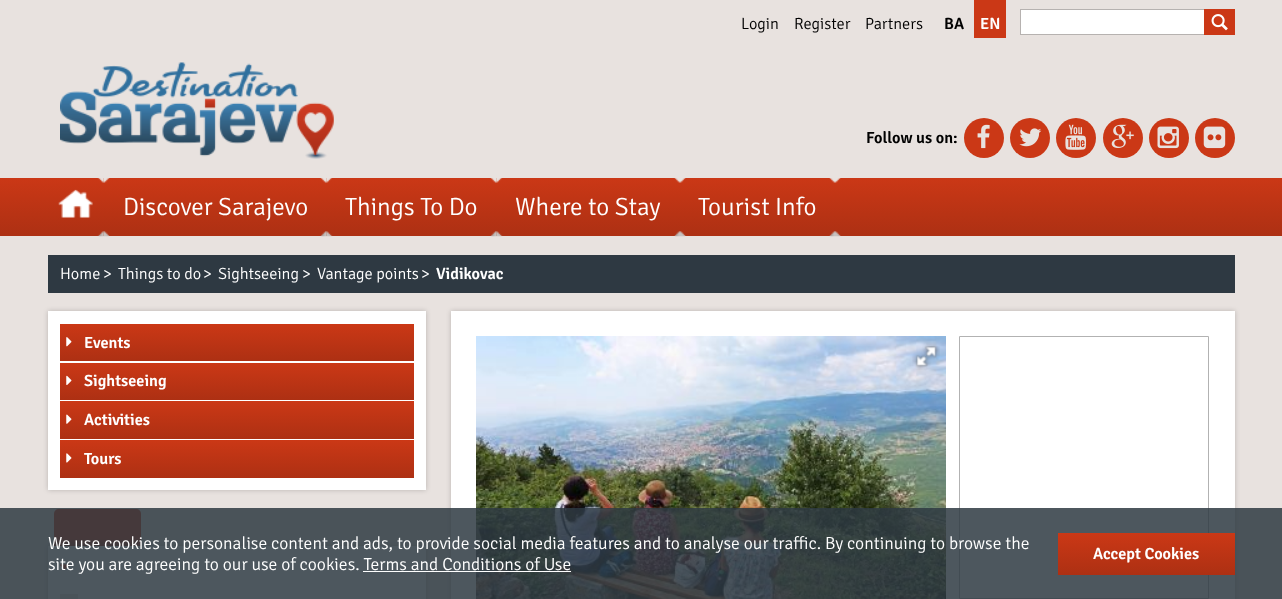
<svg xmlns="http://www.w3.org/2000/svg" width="1282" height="599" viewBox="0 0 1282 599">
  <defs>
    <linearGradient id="g1" gradientUnits="userSpaceOnUse" x1="641" y1="177" x2="641" y2="236"><stop offset="0" stop-color="#cb3816"/><stop offset="1" stop-color="#ad3013"/></linearGradient>
    <linearGradient id="g2" gradientUnits="userSpaceOnUse" x1="237" y1="324" x2="237" y2="361"><stop offset="0" stop-color="#cb3816"/><stop offset="1" stop-color="#ad3013"/></linearGradient>
    <linearGradient id="g3" gradientUnits="userSpaceOnUse" x1="237" y1="363" x2="237" y2="400"><stop offset="0" stop-color="#cb3816"/><stop offset="1" stop-color="#ad3013"/></linearGradient>
    <linearGradient id="g4" gradientUnits="userSpaceOnUse" x1="237" y1="401" x2="237" y2="439"><stop offset="0" stop-color="#cb3816"/><stop offset="1" stop-color="#ad3013"/></linearGradient>
    <linearGradient id="g5" gradientUnits="userSpaceOnUse" x1="237" y1="440" x2="237" y2="478"><stop offset="0" stop-color="#cb3816"/><stop offset="1" stop-color="#ad3013"/></linearGradient>
    <linearGradient id="g6" gradientUnits="userSpaceOnUse" x1="1146" y1="533" x2="1146" y2="575"><stop offset="0" stop-color="#cb3816"/><stop offset="1" stop-color="#ad3013"/></linearGradient>
  </defs>
  <rect width="100%" height="100%" fill="#e8e2df"/>
  <path d="M974 0h32v38H974z" fill="#cb3816"/>
  <path d="M1021 10h183v24H1021z" fill="#fff"/>
  <path d="M1020 9h184v1H1020z" fill="#b6b2b0"/>
  <path d="M1020 34h184v1H1020z" fill="#b6b2b0"/>
  <path d="M1020 9h1v26H1020z" fill="#b6b2b0"/>
  <path d="M1204 9h31v26H1204z" fill="#cb3816"/>
  <image x="1211" y="14" width="17" height="17" href="img/1.png"/>
  <image x="60" y="62" width="274" height="97" href="img/2.png"/>
  <circle cx="984" cy="138" r="20" fill="#cb3816"/>
  <image x="977" y="124" width="13" height="25" href="img/3.png"/>
  <circle cx="1030" cy="138" r="20" fill="#cb3816"/>
  <image x="1019" y="128" width="23" height="19" href="img/4.png"/>
  <circle cx="1076" cy="138" r="20" fill="#cb3816"/>
  <image x="1065" y="124" width="22" height="26" href="img/5.png"/>
  <circle cx="1123" cy="138" r="20" fill="#cb3816"/>
  <image x="1111" y="124" width="23" height="24" href="img/6.png"/>
  <circle cx="1169" cy="138" r="20" fill="#cb3816"/>
  <image x="1157" y="126" width="22" height="23" href="img/7.png"/>
  <circle cx="1215" cy="138" r="20" fill="#cb3816"/>
  <image x="1203" y="126" width="23" height="23" href="img/8.png"/>
  <path d="M0 178h1282v58H0z" fill="url(#g1)"/>
  <image x="97" y="178" width="7" height="59" href="img/9.png"/>
  <image x="58" y="189" width="35" height="29" href="img/10.png"/>
  <image x="320" y="178" width="7" height="59" href="img/11.png"/>
  <image x="103" y="178" width="7" height="59" href="img/12.png"/>
  <image x="490" y="178" width="7" height="59" href="img/13.png"/>
  <image x="326" y="178" width="7" height="59" href="img/14.png"/>
  <image x="674" y="178" width="6" height="59" href="img/15.png"/>
  <image x="496" y="178" width="7" height="59" href="img/14.png"/>
  <image x="829" y="178" width="6" height="59" href="img/15.png"/>
  <image x="680" y="178" width="6" height="59" href="img/16.png"/>
  <image x="835" y="178" width="6" height="59" href="img/16.png"/>
  <path d="M48 255h1187v38H48z" fill="#2e3942"/>
  <path d="M48 311h378v179H48z" fill="#00000033" filter="blur(2.5px)"/>
  <path d="M48 311h378v179H48z" fill="#fff"/>
  <path d="M60 324h354v37H60z" fill="url(#g2)"/>
  <image x="66" y="337" width="6" height="10" href="img/17.png"/>
  <path d="M60 363h354v37H60z" fill="url(#g3)"/>
  <image x="66" y="375" width="6" height="10" href="img/18.png"/>
  <path d="M60 401h354v38H60z" fill="url(#g4)"/>
  <image x="66" y="414" width="6" height="10" href="img/19.png"/>
  <path d="M60 440h354v38H60z" fill="url(#g5)"/>
  <image x="66" y="453" width="6" height="10" href="img/20.png"/>
  <path d="M48 546h378v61H48z" fill="#00000033" filter="blur(2.5px)"/>
  <path d="M59 509H136C139 509 141 511 141 514V546H54V514C54 511 56 509 59 509Z" fill="#cb3816"/>
  <image x="54" y="539" width="87" height="7" href="img/21.png"/>
  <path d="M48 546h378v53H48z" fill="#fff"/>
  <image x="60" y="564" width="10" height="6" href="img/22.png"/>
  <path d="M60 594h18v5H60z" fill="#e8e2df"/>
  <path d="M451 311h784v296H451z" fill="#00000033" filter="blur(2.5px)"/>
  <path d="M451 311h784v288H451z" fill="#fff"/>
  <image x="476" y="336" width="470" height="263" href="img/23.png"/>
  <image x="912" y="342" width="28" height="28" href="img/24.png"/>
  <path d="M959.5 336.5h249v262H959.5z" fill="none" stroke="#b2b2b2"/>
  <path d="M0 508h1282v91H0z" fill="#2e3942d9"/>
  <path d="M363 571h208v1H363z" fill="#fff"/>
  <path d="M1058 533h177v42H1058z" fill="url(#g6)"/>
  <g font-family="Signika" font-size="16.25" font-weight="300" fill="#010101">
    <text x="741" y="29">Login</text>
    <text x="794" y="29">Register</text>
    <text x="865" y="29">Partners</text>
  </g>
  <text x="944" y="29" font-family="Signika" font-size="16.25" font-weight="600" fill="#010101">BA</text>
  <text x="980" y="29" font-family="Signika" font-size="16.25" font-weight="600" fill="#fff">EN</text>
  <text x="866" y="143" font-family="Signika" font-size="16.25" font-weight="600" fill="#010101">Follow us on:</text>
  <g font-family="Signika" font-size="25" font-weight="300" fill="#fff">
    <text x="123" y="215">Discover Sarajevo</text>
    <text x="345" y="215">Things To Do</text>
    <text x="515" y="215">Where to Stay</text>
    <text x="698" y="215">Tourist Info</text>
  </g>
  <g font-family="Signika" font-size="16.25" font-weight="300" fill="#fff">
    <text x="60" y="279">Home</text>
    <text x="103" y="279">&gt;</text>
    <text x="118" y="279">Things to do</text>
    <text x="203" y="279">&gt;</text>
    <text x="218" y="279">Sightseeing</text>
    <text x="302" y="279">&gt;</text>
    <text x="317" y="279">Vantage points</text>
    <text x="421" y="279">&gt;</text>
  </g>
  <g font-family="Signika" font-size="16.25" font-weight="600" fill="#fff">
    <text x="436" y="279">Vidikovac</text>
    <text x="84" y="348">Events</text>
    <text x="84" y="386">Sightseeing</text>
    <text x="84" y="425">Activities</text>
    <text x="84" y="464">Tours</text>
  </g>
  <g font-family="Signika" font-size="17.5" font-weight="300" fill="#fff">
    <text x="48" y="549">We use cookies to personalise content and ads, to provide social media features and to analyse our traffic. By continuing to browse the</text>
    <text x="48" y="570">site you are agreeing to our use of cookies. Terms and Conditions of Use</text>
  </g>
  <text x="1093" y="559" font-family="Signika" font-size="16.25" font-weight="600" fill="#fff">Accept Cookies</text>
</svg>
